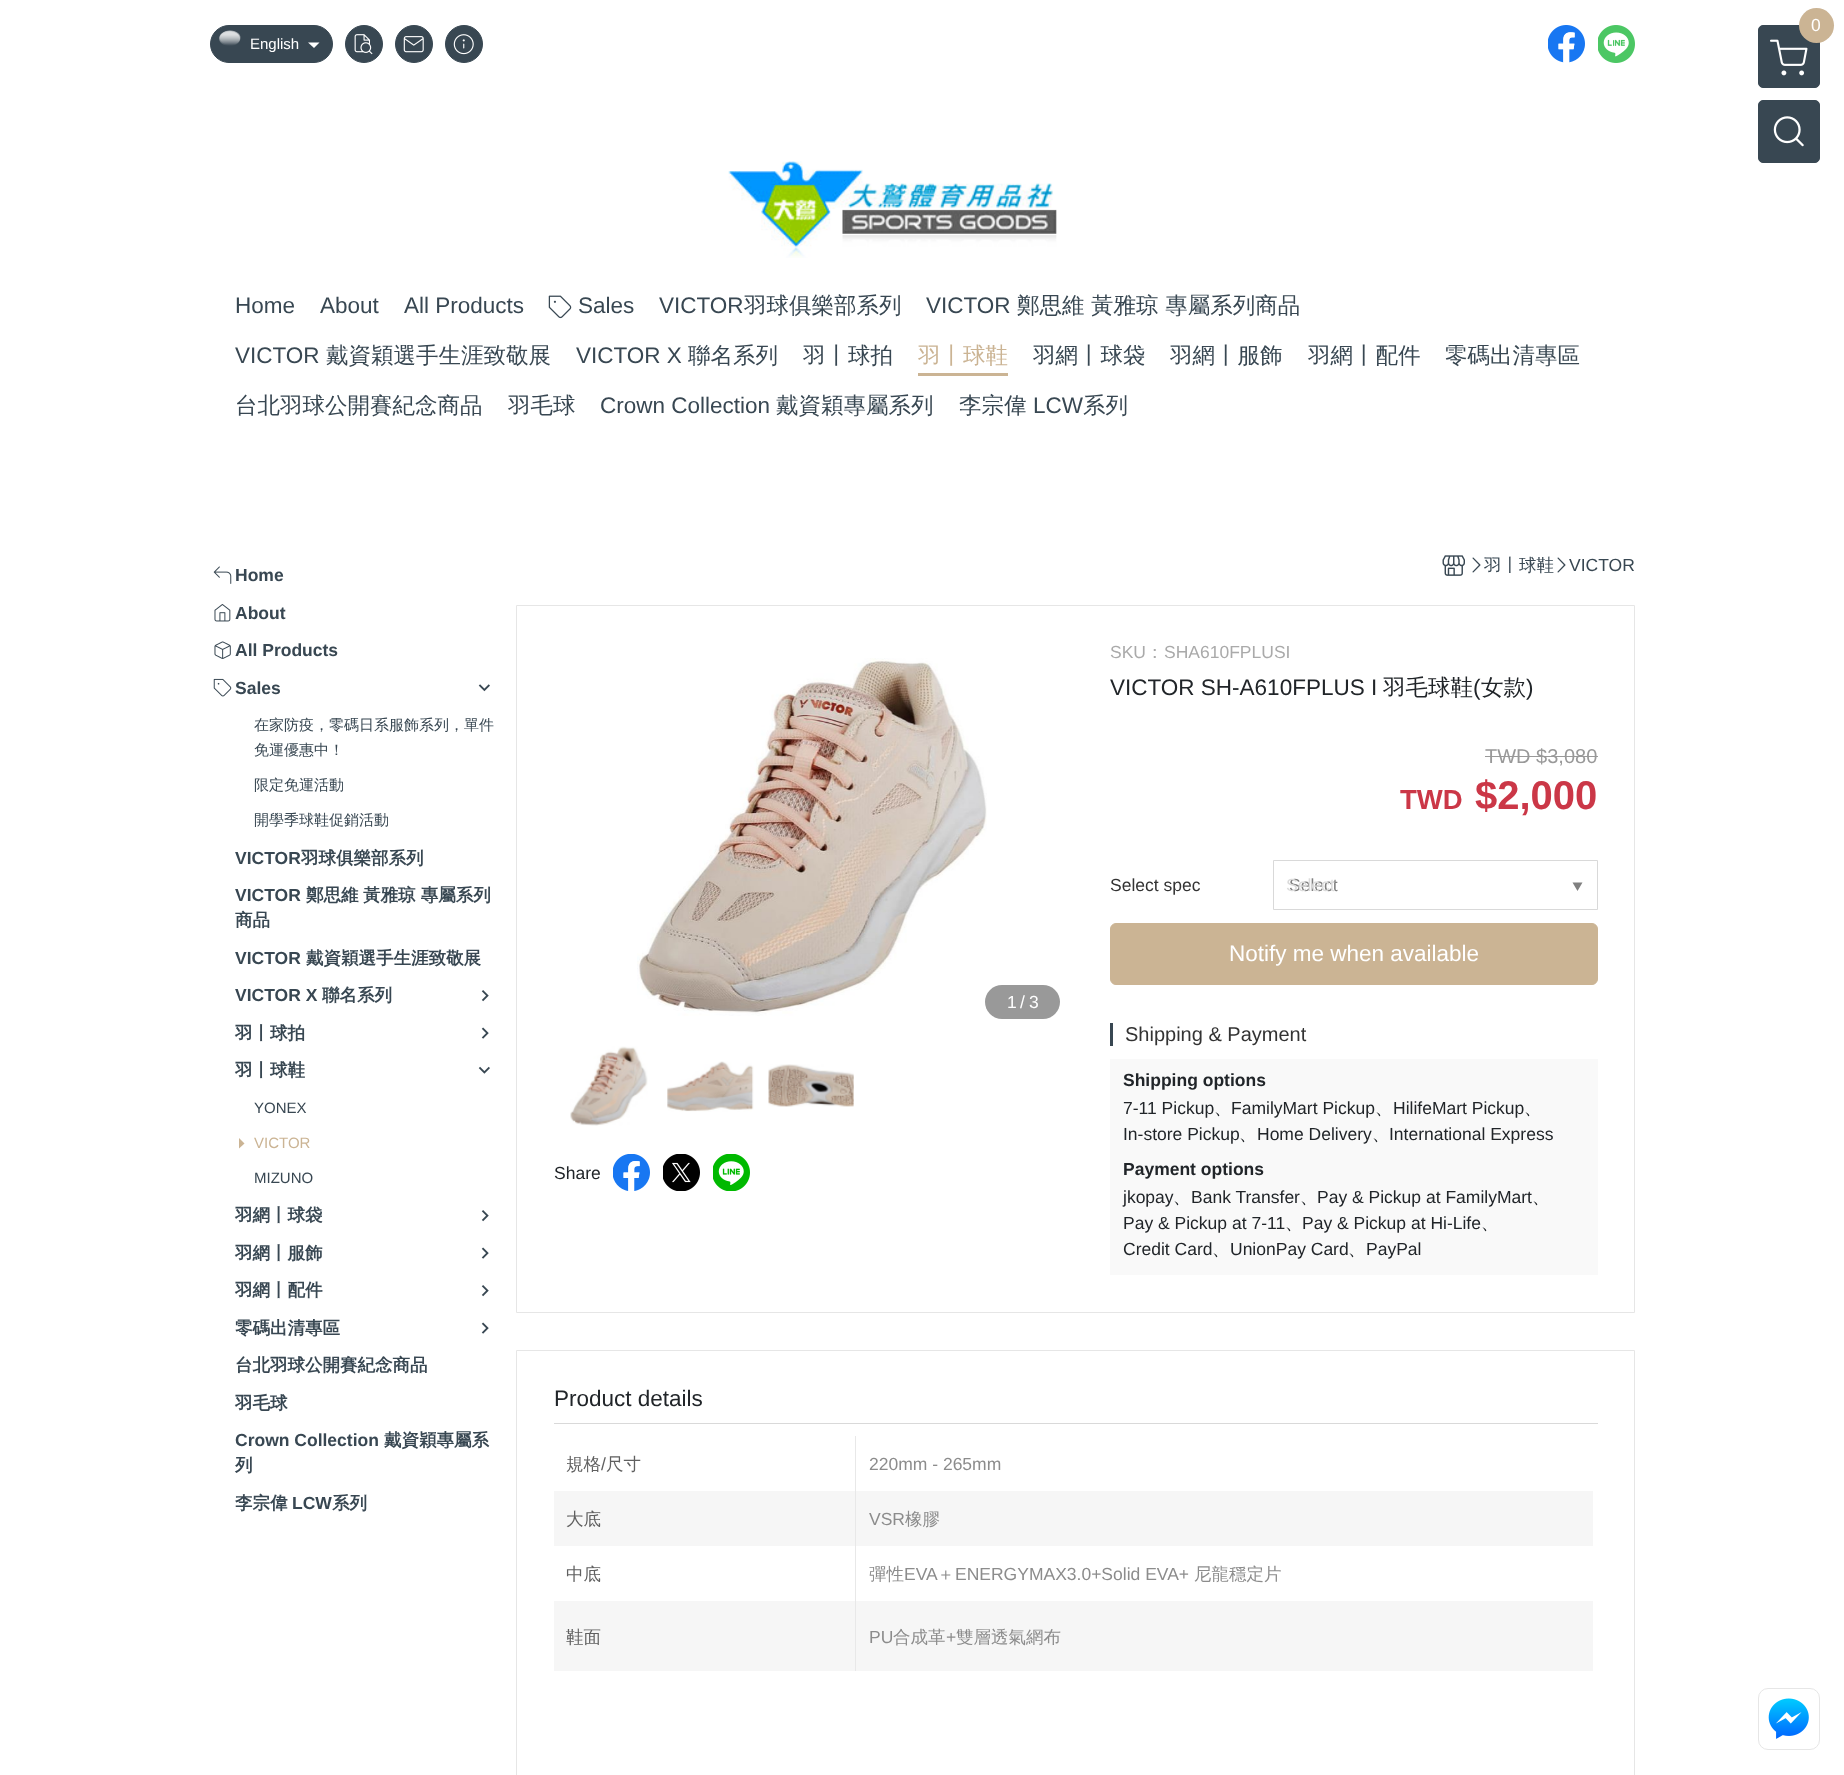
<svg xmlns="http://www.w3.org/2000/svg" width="1844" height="1775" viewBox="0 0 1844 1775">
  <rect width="100%" height="100%" fill="#fff"/>
  <rect x="1758.5" y="25.5" width="61" height="62" rx="4.5" fill="#384752" stroke="#384752"/>
  <image x="1770" y="39" width="38" height="37" href="img/1.png"/>
  <circle cx="1816.5" cy="25.5" r="17.5" fill="#cbb494"/>
  <rect x="1758.5" y="100.5" width="61" height="62" rx="4.5" fill="#384752" stroke="#384752"/>
  <image x="1773" y="116" width="31" height="31" href="img/2.png"/>
  <rect x="210.5" y="25.5" width="122" height="37" rx="18.5" fill="#384752" stroke="#384752"/>
  <image x="219" y="30" width="22" height="16" href="img/3.png"/>
  <path d="M308 42.5H319.5L314 48Z" fill="#fff"/>
  <circle cx="364" cy="44" r="18.5" fill="#384752" stroke="#384752"/>
  <image x="354" y="34" width="19" height="21" href="img/4.png"/>
  <circle cx="414" cy="44" r="18.5" fill="#384752" stroke="#384752"/>
  <image x="403" y="36" width="21" height="17" href="img/5.png"/>
  <circle cx="464" cy="44" r="18.5" fill="#384752" stroke="#384752"/>
  <image x="453" y="34" width="21" height="21" href="img/6.png"/>
  <image x="1548" y="25" width="37" height="38" href="img/7.png"/>
  <image x="1598" y="25" width="37" height="38" href="img/8.png"/>
  <image x="728" y="161" width="329" height="97" href="img/9.png"/>
  <image x="548" y="295" width="24" height="24" href="img/10.png"/>
  <path d="M918 373h90v3H918z" fill="#cbb494"/>
  <image x="213" y="566" width="19" height="18" href="img/11.png"/>
  <image x="214" y="604" width="17" height="18" href="img/12.png"/>
  <image x="214" y="641" width="17" height="18" href="img/13.png"/>
  <image x="213" y="678" width="19" height="19" href="img/14.png"/>
  <image x="478" y="684" width="12" height="8" href="img/15.png"/>
  <image x="481" y="990" width="8" height="12" href="img/16.png"/>
  <image x="481" y="1027" width="8" height="12" href="img/17.png"/>
  <image x="478" y="1066" width="12" height="8" href="img/18.png"/>
  <path d="M239 1148.5V1138L244.5 1143.5Z" fill="#cbb494"/>
  <image x="481" y="1210" width="8" height="12" href="img/16.png"/>
  <image x="481" y="1247" width="8" height="12" href="img/17.png"/>
  <image x="481" y="1285" width="8" height="12" href="img/16.png"/>
  <image x="481" y="1322" width="8" height="12" href="img/17.png"/>
  <image x="1442" y="555" width="23" height="21" href="img/19.png"/>
  <image x="1472" y="557" width="9" height="16" href="img/20.png"/>
  <image x="1557" y="557" width="9" height="16" href="img/20.png"/>
  <image x="613" y="1154" width="37" height="37" href="img/25.png"/>
  <image x="663" y="1154" width="37" height="37" href="img/26.png"/>
  <image x="713" y="1154" width="37" height="37" href="img/27.png"/>
  <path d="M1110 1023h3v23H1110z" fill="#384752"/>
  <path d="M1110 1059h488v216H1110z" fill="#f9f9f9"/>
  <path d="M516.5 605.5h1118v707H516.5z" fill="none" stroke="#e6e6e6"/>
  <image x="637" y="658" width="350" height="358" href="img/21.png"/>
  <rect x="985" y="985" width="75" height="34" rx="17" fill="#999"/>
  <image x="570" y="1046" width="78" height="80" href="img/22.png"/>
  <image x="667" y="1061" width="87" height="51" href="img/23.png"/>
  <image x="768" y="1064" width="86" height="43" href="img/24.png"/>
  <path d="M1485 756h113v1H1485z" fill="#999"/>
  <path d="M1273.5 860.5h324v49H1273.5z" fill="none" stroke="#d9d9d9"/>
  <path d="M1572.5 882.5H1582.5L1577.5 891Z" fill="#808080"/>
  <rect x="1110.5" y="923.5" width="487" height="61" rx="5.5" fill="#cbb494" stroke="#cbb494"/>
  <path d="M554 1423h1044v1H554z" fill="#d9d9d9"/>
  <path d="M516.5 1350.5h1118v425H516.5z" fill="none" stroke="#e6e6e6"/>
  <path d="M855 1436h1v235H855z" fill="#e8e8e8"/>
  <path d="M554 1491h301v55H554z" fill="#f6f6f6"/>
  <path d="M856 1491h737v55H856z" fill="#f6f6f6"/>
  <path d="M554 1601h301v70H554z" fill="#f6f6f6"/>
  <path d="M856 1601h737v70H856z" fill="#f6f6f6"/>
  <rect x="1758.5" y="1688.5" width="61" height="61" rx="9.5" fill="none" stroke="#e6e6e6"/>
  <image x="1768" y="1698" width="41" height="41" href="img/28.png"/>
  <text x="1811" y="31" font-family="Liberation Sans" font-size="17.5" letter-spacing="1" fill="#fff">0</text>
  <text x="250" y="49" font-family="Liberation Sans" font-size="15" fill="#fff">English</text>
  <g font-family="Liberation Sans" font-size="22.5" fill="#384752">
    <text x="235" y="313">Home</text>
    <text x="320" y="313">About</text>
    <text x="404" y="313">All Products</text>
    <text x="578" y="313">Sales</text>
    <text x="659" y="313">VICTOR</text>
  </g>
  <text x="744" y="313" font-family="WenQuanYi Zen Hei" font-size="22.5" font-weight="500" fill="#384752">羽球俱樂部系列</text>
  <text x="926" y="313" font-family="Liberation Sans" font-size="22.5" fill="#384752">VICTOR</text>
  <g font-family="WenQuanYi Zen Hei" font-size="22.5" font-weight="500" fill="#384752">
    <text x="1017" y="313">鄭思維</text>
    <text x="1091" y="313">黃雅琼 專屬系列商品</text>
  </g>
  <text x="235" y="363" font-family="Liberation Sans" font-size="22.5" fill="#384752">VICTOR</text>
  <text x="326" y="363" font-family="WenQuanYi Zen Hei" font-size="22.5" font-weight="500" fill="#384752">戴資穎選手生涯致敬展</text>
  <text x="576" y="363" font-family="Liberation Sans" font-size="22.5" fill="#384752">VICTOR X</text>
  <g font-family="WenQuanYi Zen Hei" font-size="22.5" font-weight="500" fill="#384752">
    <text x="688" y="363">聯名系列</text>
    <text x="803" y="363">羽丨球拍</text>
  </g>
  <text x="918" y="363" font-family="WenQuanYi Zen Hei" font-size="22.5" font-weight="500" fill="#cbb494">羽丨球鞋</text>
  <g font-family="WenQuanYi Zen Hei" font-size="22.5" font-weight="500" fill="#384752">
    <text x="1033" y="363">羽網丨球袋</text>
    <text x="1170" y="363">羽網丨服飾</text>
    <text x="1308" y="363">羽網丨配件</text>
    <text x="1445" y="363">零碼出清專區</text>
    <text x="235" y="413">台北羽球公開賽紀念商品</text>
    <text x="508" y="413">羽毛球</text>
  </g>
  <text x="600" y="413" font-family="Liberation Sans" font-size="22.5" fill="#384752">Crown Collection</text>
  <g font-family="WenQuanYi Zen Hei" font-size="22.5" font-weight="500" fill="#384752">
    <text x="776" y="413">戴資穎專屬系列</text>
    <text x="959" y="413">李宗偉</text>
  </g>
  <text x="1033" y="413" font-family="Liberation Sans" font-size="22.5" fill="#384752">LCW</text>
  <text x="1083" y="413" font-family="WenQuanYi Zen Hei" font-size="22.5" font-weight="500" fill="#384752">系列</text>
  <g font-family="Liberation Sans" font-size="17.5" font-weight="bold" fill="#384752">
    <text x="235" y="581">Home</text>
    <text x="235" y="619">About</text>
    <text x="235" y="656">All Products</text>
    <text x="235" y="694">Sales</text>
  </g>
  <g font-family="WenQuanYi Zen Hei" font-size="15" font-weight="500" fill="#384752">
    <text x="254" y="730">在家防疫，零碼日系服飾系列，單件</text>
    <text x="254" y="755">免運優惠中！</text>
    <text x="254" y="790">限定免運活動</text>
    <text x="254" y="825">開學季球鞋促銷活動</text>
  </g>
  <text x="235" y="864" font-family="Liberation Sans" font-size="17.5" font-weight="bold" fill="#384752">VICTOR</text>
  <text x="301" y="864" font-family="WenQuanYi Zen Hei" font-size="17.5" font-weight="bold" fill="#384752">羽球俱樂部系列</text>
  <text x="235" y="901" font-family="Liberation Sans" font-size="17.5" font-weight="bold" fill="#384752">VICTOR</text>
  <g font-family="WenQuanYi Zen Hei" font-size="17.5" font-weight="bold" fill="#384752">
    <text x="306" y="901">鄭思維</text>
    <text x="363" y="901">黃雅琼 專屬系列</text>
    <text x="235" y="926">商品</text>
  </g>
  <text x="235" y="964" font-family="Liberation Sans" font-size="17.5" font-weight="bold" fill="#384752">VICTOR</text>
  <text x="306" y="964" font-family="WenQuanYi Zen Hei" font-size="17.5" font-weight="bold" fill="#384752">戴資穎選手生涯致敬展</text>
  <text x="235" y="1001" font-family="Liberation Sans" font-size="17.5" font-weight="bold" fill="#384752">VICTOR X</text>
  <g font-family="WenQuanYi Zen Hei" font-size="17.5" font-weight="bold" fill="#384752">
    <text x="322" y="1001">聯名系列</text>
    <text x="235" y="1039">羽丨球拍</text>
    <text x="235" y="1076">羽丨球鞋</text>
  </g>
  <text x="254" y="1113" font-family="Liberation Sans" font-size="15" fill="#384752">YONEX</text>
  <text x="254" y="1148" font-family="Liberation Sans" font-size="15" fill="#cbb494">VICTOR</text>
  <text x="254" y="1183" font-family="Liberation Sans" font-size="15" fill="#384752">MIZUNO</text>
  <g font-family="WenQuanYi Zen Hei" font-size="17.5" font-weight="bold" fill="#384752">
    <text x="235" y="1221">羽網丨球袋</text>
    <text x="235" y="1259">羽網丨服飾</text>
    <text x="235" y="1296">羽網丨配件</text>
    <text x="235" y="1334">零碼出清專區</text>
    <text x="235" y="1371">台北羽球公開賽紀念商品</text>
    <text x="235" y="1409">羽毛球</text>
  </g>
  <text x="235" y="1446" font-family="Liberation Sans" font-size="17.5" font-weight="bold" fill="#384752">Crown Collection</text>
  <g font-family="WenQuanYi Zen Hei" font-size="17.5" font-weight="bold" fill="#384752">
    <text x="384" y="1446">戴資穎專屬系</text>
    <text x="235" y="1471">列</text>
    <text x="235" y="1509">李宗偉</text>
  </g>
  <text x="292" y="1509" font-family="Liberation Sans" font-size="17.5" font-weight="bold" fill="#384752">LCW</text>
  <text x="332" y="1509" font-family="WenQuanYi Zen Hei" font-size="17.5" font-weight="bold" fill="#384752">系列</text>
  <text x="1484" y="571" font-family="WenQuanYi Zen Hei" font-size="17.5" font-weight="500" fill="#384752">羽丨球鞋</text>
  <text x="1569" y="571" font-family="Liberation Sans" font-size="17.5" fill="#384752">VICTOR</text>
  <g font-family="Liberation Sans" font-size="17.5" fill="#fff">
    <text x="1007" y="1008">1</text>
    <text x="1020" y="1008">/</text>
    <text x="1029" y="1008">3</text>
  </g>
  <text x="554" y="1179" font-family="Liberation Sans" font-size="17.5" fill="#212529">Share</text>
  <text x="1110" y="658" font-family="Liberation Sans" font-size="17.5" fill="#aaa">SKU</text>
  <text x="1146" y="658" font-family="WenQuanYi Zen Hei" font-size="17.5" font-weight="500" fill="#aaa">：</text>
  <text x="1164" y="658" font-family="Liberation Sans" font-size="17.5" fill="#aaa">SHA610FPLUSI</text>
  <text x="1110" y="695" font-family="Liberation Sans" font-size="22.5" fill="#212529">VICTOR SH-A610FPLUS I</text>
  <text x="1383" y="695" font-family="WenQuanYi Zen Hei" font-size="22.5" font-weight="500" fill="#212529">羽毛球鞋</text>
  <text x="1473" y="695" font-family="Liberation Sans" font-size="22.5" fill="#212529">(</text>
  <text x="1481" y="695" font-family="WenQuanYi Zen Hei" font-size="22.5" font-weight="500" fill="#212529">女款</text>
  <text x="1526" y="695" font-family="Liberation Sans" font-size="22.5" fill="#212529">)</text>
  <text x="1485" y="763" font-family="Liberation Sans" font-size="20" fill="#999">TWD $3,080</text>
  <text x="1400" y="809" font-family="Liberation Sans" font-size="27.5" font-weight="bold" fill="#cb3747">TWD</text>
  <text x="1475" y="809" font-family="Liberation Sans" font-size="40" font-weight="bold" fill="#cb3747">$2,000</text>
  <text x="1110" y="891" font-family="Liberation Sans" font-size="17.5" fill="#333">Select spec</text>
  <text x="1289" y="891" font-family="Liberation Sans" font-size="17.5" fill="#808080">Select</text>
  <text x="1286" y="891" font-family="Liberation Sans" font-size="17.5" fill="#dbdbdb">Select</text>
  <text x="1229" y="961" font-family="Liberation Sans" font-size="22.5" fill="#fff">Notify me when available</text>
  <text x="1125" y="1041" font-family="Liberation Sans" font-size="20" fill="#333">Shipping &amp; Payment</text>
  <text x="1123" y="1086" font-family="Liberation Sans" font-size="17.5" font-weight="bold" fill="#212529">Shipping options</text>
  <text x="1123" y="1114" font-family="Liberation Sans" font-size="17.5" fill="#212529">7-11 Pickup</text>
  <text x="1214" y="1114" font-family="WenQuanYi Zen Hei" font-size="17.5" font-weight="500" fill="#212529">、</text>
  <text x="1231" y="1114" font-family="Liberation Sans" font-size="17.5" fill="#212529">FamilyMart Pickup</text>
  <text x="1375" y="1114" font-family="WenQuanYi Zen Hei" font-size="17.5" font-weight="500" fill="#212529">、</text>
  <text x="1393" y="1114" font-family="Liberation Sans" font-size="17.5" fill="#212529">HilifeMart Pickup</text>
  <text x="1524" y="1114" font-family="WenQuanYi Zen Hei" font-size="17.5" font-weight="500" fill="#212529">、</text>
  <text x="1123" y="1140" font-family="Liberation Sans" font-size="17.5" fill="#212529">In-store Pickup</text>
  <text x="1239" y="1140" font-family="WenQuanYi Zen Hei" font-size="17.5" font-weight="500" fill="#212529">、</text>
  <text x="1257" y="1140" font-family="Liberation Sans" font-size="17.5" fill="#212529">Home Delivery</text>
  <text x="1372" y="1140" font-family="WenQuanYi Zen Hei" font-size="17.5" font-weight="500" fill="#212529">、</text>
  <text x="1389" y="1140" font-family="Liberation Sans" font-size="17.5" fill="#212529">International Express</text>
  <text x="1123" y="1175" font-family="Liberation Sans" font-size="17.5" font-weight="bold" fill="#212529">Payment options</text>
  <text x="1123" y="1203" font-family="Liberation Sans" font-size="17.5" fill="#212529">jkopay</text>
  <text x="1173" y="1203" font-family="WenQuanYi Zen Hei" font-size="17.5" font-weight="500" fill="#212529">、</text>
  <text x="1191" y="1203" font-family="Liberation Sans" font-size="17.5" fill="#212529">Bank Transfer</text>
  <text x="1300" y="1203" font-family="WenQuanYi Zen Hei" font-size="17.5" font-weight="500" fill="#212529">、</text>
  <text x="1317" y="1203" font-family="Liberation Sans" font-size="17.5" fill="#212529">Pay &amp; Pickup at FamilyMart</text>
  <text x="1532" y="1203" font-family="WenQuanYi Zen Hei" font-size="17.5" font-weight="500" fill="#212529">、</text>
  <text x="1123" y="1229" font-family="Liberation Sans" font-size="17.5" fill="#212529">Pay &amp; Pickup at 7-11</text>
  <text x="1285" y="1229" font-family="WenQuanYi Zen Hei" font-size="17.5" font-weight="500" fill="#212529">、</text>
  <text x="1302" y="1229" font-family="Liberation Sans" font-size="17.5" fill="#212529">Pay &amp; Pickup at Hi-Life</text>
  <text x="1481" y="1229" font-family="WenQuanYi Zen Hei" font-size="17.5" font-weight="500" fill="#212529">、</text>
  <text x="1123" y="1255" font-family="Liberation Sans" font-size="17.5" fill="#212529">Credit Card</text>
  <text x="1212" y="1255" font-family="WenQuanYi Zen Hei" font-size="17.5" font-weight="500" fill="#212529">、</text>
  <text x="1230" y="1255" font-family="Liberation Sans" font-size="17.5" fill="#212529">UnionPay Card</text>
  <text x="1348" y="1255" font-family="WenQuanYi Zen Hei" font-size="17.5" font-weight="500" fill="#212529">、</text>
  <text x="1366" y="1255" font-family="Liberation Sans" font-size="17.5" fill="#212529">PayPal</text>
  <text x="554" y="1406" font-family="Liberation Sans" font-size="22.5" fill="#212529">Product details</text>
  <text x="566" y="1470" font-family="WenQuanYi Zen Hei" font-size="17.5" font-weight="500" fill="#606060">規格</text>
  <text x="601" y="1470" font-family="Liberation Sans" font-size="17.5" fill="#606060">/</text>
  <text x="606" y="1470" font-family="WenQuanYi Zen Hei" font-size="17.5" font-weight="500" fill="#606060">尺寸</text>
  <text x="869" y="1470" font-family="Liberation Sans" font-size="17.5" fill="#8c8c8c">220mm - 265mm</text>
  <text x="566" y="1525" font-family="WenQuanYi Zen Hei" font-size="17.5" font-weight="500" fill="#606060">大底</text>
  <text x="869" y="1525" font-family="Liberation Sans" font-size="17.5" fill="#8c8c8c">VSR</text>
  <text x="905" y="1525" font-family="WenQuanYi Zen Hei" font-size="17.5" font-weight="500" fill="#8c8c8c">橡膠</text>
  <text x="566" y="1580" font-family="WenQuanYi Zen Hei" font-size="17.5" font-weight="500" fill="#606060">中底</text>
  <text x="869" y="1580" font-family="WenQuanYi Zen Hei" font-size="17.5" font-weight="500" fill="#8c8c8c">彈性</text>
  <text x="904" y="1580" font-family="Liberation Sans" font-size="17.5" fill="#8c8c8c">EVA</text>
  <text x="937" y="1580" font-family="WenQuanYi Zen Hei" font-size="17.5" font-weight="500" fill="#8c8c8c">＋</text>
  <text x="955" y="1580" font-family="Liberation Sans" font-size="17.5" fill="#8c8c8c">ENERGYMAX3.0+Solid EVA+</text>
  <text x="1194" y="1580" font-family="WenQuanYi Zen Hei" font-size="17.5" font-weight="500" fill="#8c8c8c">尼龍穩定片</text>
  <text x="566" y="1643" font-family="WenQuanYi Zen Hei" font-size="17.5" font-weight="500" fill="#606060">鞋面</text>
  <text x="869" y="1643" font-family="Liberation Sans" font-size="17.5" fill="#8c8c8c">PU</text>
  <text x="893" y="1643" font-family="WenQuanYi Zen Hei" font-size="17.5" font-weight="500" fill="#8c8c8c">合成革</text>
  <text x="946" y="1643" font-family="Liberation Sans" font-size="17.5" fill="#8c8c8c">+</text>
  <text x="956" y="1643" font-family="WenQuanYi Zen Hei" font-size="17.5" font-weight="500" fill="#8c8c8c">雙層透氣網布</text>
</svg>
